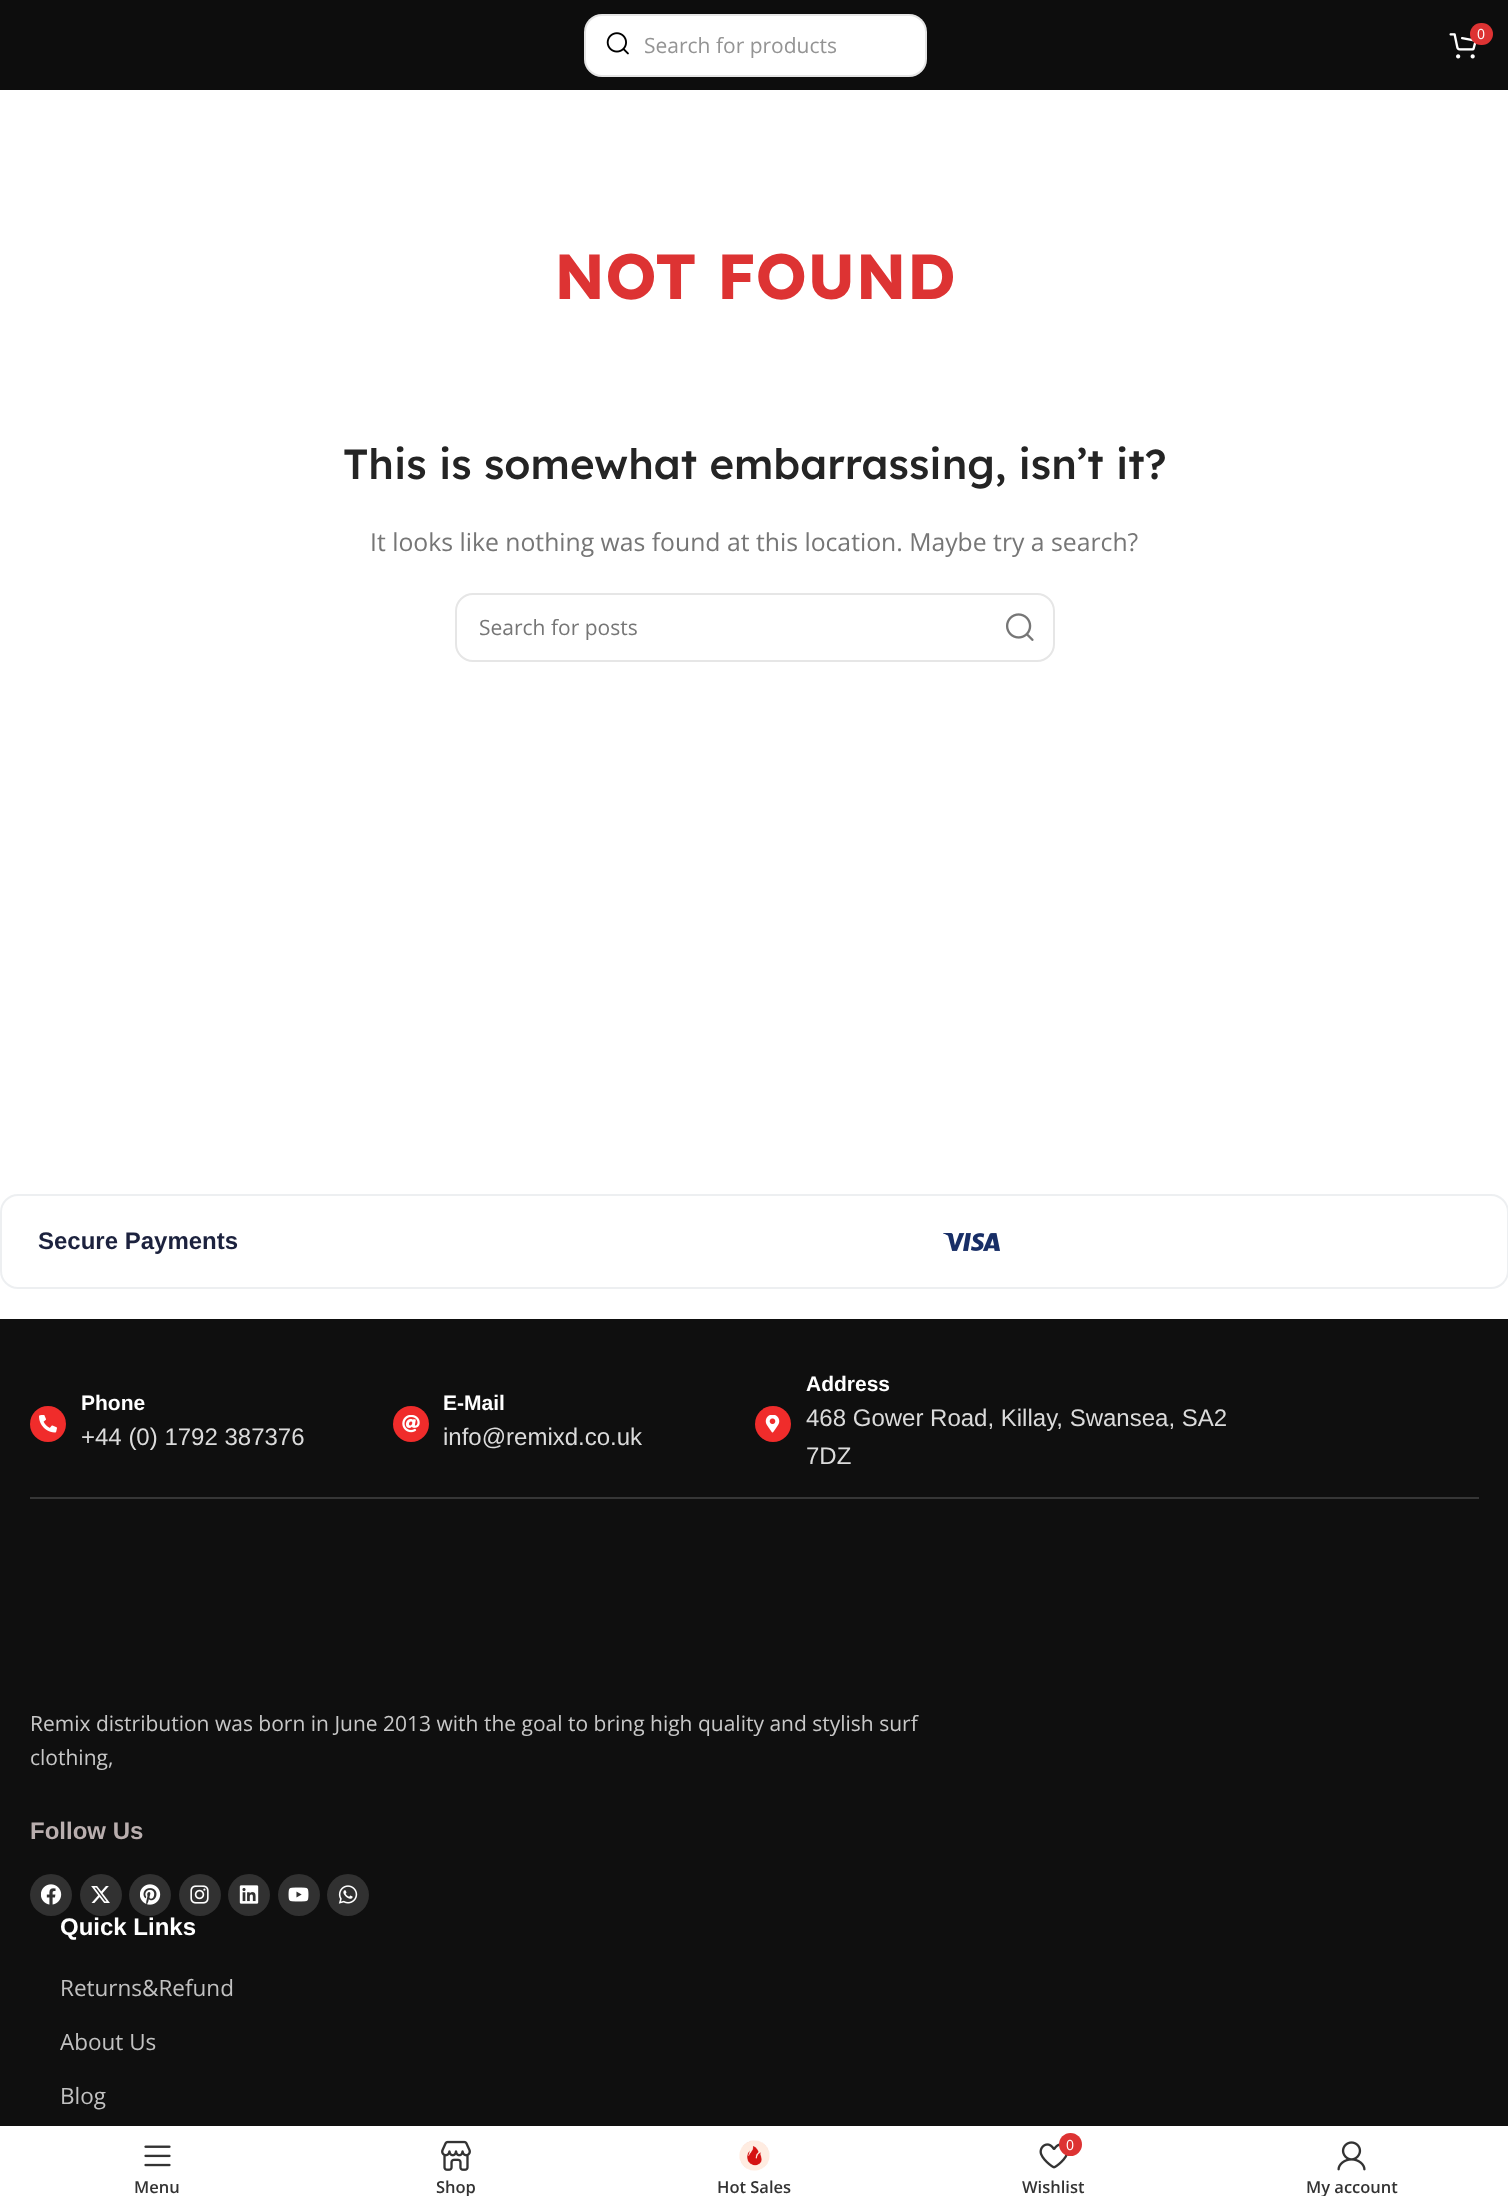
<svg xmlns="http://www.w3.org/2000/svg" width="1508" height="2208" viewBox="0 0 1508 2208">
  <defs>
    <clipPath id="clip1"><path d="M321 2177h269v19H321z"/></clipPath>
    <clipPath id="clip2"><path d="M1218 2177h269v19H1218z"/></clipPath>
  </defs>
  <rect width="100%" height="100%" fill="#fff"/>
  <path d="M0 0h1508v90H0z" fill="#0d0d0d"/>
  <image x="1449" y="33" width="28" height="26" href="img/1.png"/>
  <rect x="1470" y="23" width="23" height="22" rx="11" fill="#d33"/>
  <rect x="584" y="14" width="343" height="63" rx="18" fill="#fff"/>
  <rect x="585" y="15" width="341" height="61" rx="17" fill="none" stroke="#0000001a" stroke-width="2"/>
  <image x="606" y="32" width="23" height="23" href="img/2.png"/>
  <path d="M607.5 54C602.5 49 602.5 41 607.5 36" fill="none" stroke="#fff" stroke-width="1.5"/>
  <rect x="456" y="594" width="598" height="67" rx="17" fill="none" stroke="#e6e6e6" stroke-width="2"/>
  <image x="1006" y="613" width="28" height="28" href="img/3.png"/>
  <rect x="1" y="1195" width="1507" height="93" rx="17" fill="none" stroke="#687d8b1f" stroke-width="2"/>
  <image x="943" y="1233" width="57" height="18" href="img/4.png"/>
  <path d="M0 1319h1508v807H0z" fill="#0f0f0f"/>
  <path d="M30 1497h1449v2H30z" fill="#363636"/>
  <circle cx="48" cy="1424" r="18" fill="#f02c2b"/>
  <image x="39" y="1415" width="18" height="18" href="img/5.png"/>
  <circle cx="411" cy="1424" r="18" fill="#f02c2b"/>
  <image x="402" y="1415" width="18" height="18" href="img/6.png"/>
  <circle cx="773" cy="1424" r="18" fill="#f02c2b"/>
  <image x="765" y="1415" width="15" height="18" href="img/7.png"/>
  <circle cx="51" cy="1895" r="21" fill="#313131"/>
  <image x="41" y="1884" width="21" height="21" href="img/8.png"/>
  <circle cx="101" cy="1895" r="21" fill="#313131"/>
  <image x="91" y="1886" width="19" height="17" href="img/9.png"/>
  <circle cx="150" cy="1895" r="21" fill="#313131"/>
  <image x="140" y="1884" width="21" height="21" href="img/10.png"/>
  <circle cx="200" cy="1895" r="21" fill="#313131"/>
  <image x="190" y="1885" width="19" height="19" href="img/11.png"/>
  <circle cx="249" cy="1895" r="21" fill="#313131"/>
  <image x="239" y="1885" width="20" height="19" href="img/12.png"/>
  <circle cx="299" cy="1895" r="21" fill="#313131"/>
  <image x="288" y="1887" width="21" height="15" href="img/13.png"/>
  <circle cx="348" cy="1895" r="21" fill="#313131"/>
  <image x="338" y="1885" width="20" height="19" href="img/14.png"/>
  <image x="144" y="2145" width="27" height="22" href="img/15.png"/>
  <image x="441" y="2140" width="30" height="31" href="img/16.png"/>
  <image x="739" y="2140" width="31" height="31" href="img/17.png"/>
  <image x="1039" y="2143" width="29" height="26" href="img/18.png"/>
  <circle cx="1070.5" cy="2144.5" r="11.5" fill="#d33"/>
  <image x="1337" y="2141" width="29" height="30" href="img/19.png"/>
  <text x="1477" y="39" font-family="Open Sans" font-size="14" fill="#fff">0</text>
  <text x="644" y="53" font-family="Open Sans" font-size="21" fill="#949494">Search for products</text>
  <text x="554" y="299" font-family="Lexend Deca" font-size="63.5" font-weight="bold" fill="#d33">NOT FOUND</text>
  <text x="343" y="479" font-family="Lexend Deca" font-size="42" font-weight="500" fill="#242424">This is somewhat embarrassing, isn’t it?</text>
  <text x="370" y="551" font-family="Open Sans" font-size="24.75" fill="#767676">It looks like nothing was found at this location. Maybe try a search?</text>
  <text x="479" y="635" font-family="Open Sans" font-size="21" fill="#767676">Search for posts</text>
  <text x="38" y="1249" font-family="Liberation Sans" font-size="24" font-weight="bold" fill="#1c223e">Secure Payments</text>
  <text x="81" y="1410" font-family="Liberation Sans" font-size="21" font-weight="bold" fill="#fff">Phone</text>
  <text x="81" y="1445" font-family="Liberation Sans" font-size="24" fill="#dbdbdb">+44 (0) 1792 387376</text>
  <text x="443" y="1410" font-family="Liberation Sans" font-size="21" font-weight="bold" fill="#fff">E-Mail</text>
  <text x="443" y="1445" font-family="Liberation Sans" font-size="24" fill="#dbdbdb">info@remixd.co.uk</text>
  <text x="806" y="1391" font-family="Liberation Sans" font-size="21" font-weight="bold" fill="#fff">Address</text>
  <g font-family="Liberation Sans" font-size="24" fill="#dbdbdb">
    <text x="806" y="1426">468 Gower Road, Killay, Swansea, SA2</text>
    <text x="806" y="1464">7DZ</text>
  </g>
  <g font-family="Open Sans" font-size="21" fill="#c8c8c8">
    <text x="30" y="1731">Remix distribution was born in June 2013 with the goal to bring high quality and stylish surf</text>
    <text x="30" y="1765">clothing,</text>
  </g>
  <text x="30" y="1839" font-family="Liberation Sans" font-size="24" font-weight="bold" fill="#b9aeae">Follow Us</text>
  <text x="60" y="1935" font-family="Liberation Sans" font-size="24" font-weight="bold" fill="#fff">Quick Links</text>
  <g font-family="Open Sans" font-size="22.5" fill="#c1c1c1">
    <text x="60" y="1996">Returns&amp;Refund</text>
    <text x="60" y="2050">About Us</text>
    <text x="60" y="2104">Blog</text>
  </g>
  <text x="134" y="2193" font-family="Open Sans" font-size="16.5" font-weight="600" fill="#333">Menu</text>
  <g clip-path="url(#clip1)">
    <text x="436" y="2193" font-family="Open Sans" font-size="16.5" font-weight="600" fill="#333">Shop</text>
  </g>
  <text x="717" y="2193" font-family="Open Sans" font-size="16.5" font-weight="600" fill="#333">Hot Sales</text>
  <text x="1066" y="2150" font-family="Open Sans" font-size="14" fill="#fff">0</text>
  <text x="1022" y="2193" font-family="Open Sans" font-size="16.5" font-weight="600" fill="#333">Wishlist</text>
  <g clip-path="url(#clip2)">
    <text x="1306" y="2193" font-family="Open Sans" font-size="16.5" font-weight="600" fill="#333">My account</text>
  </g>
</svg>
